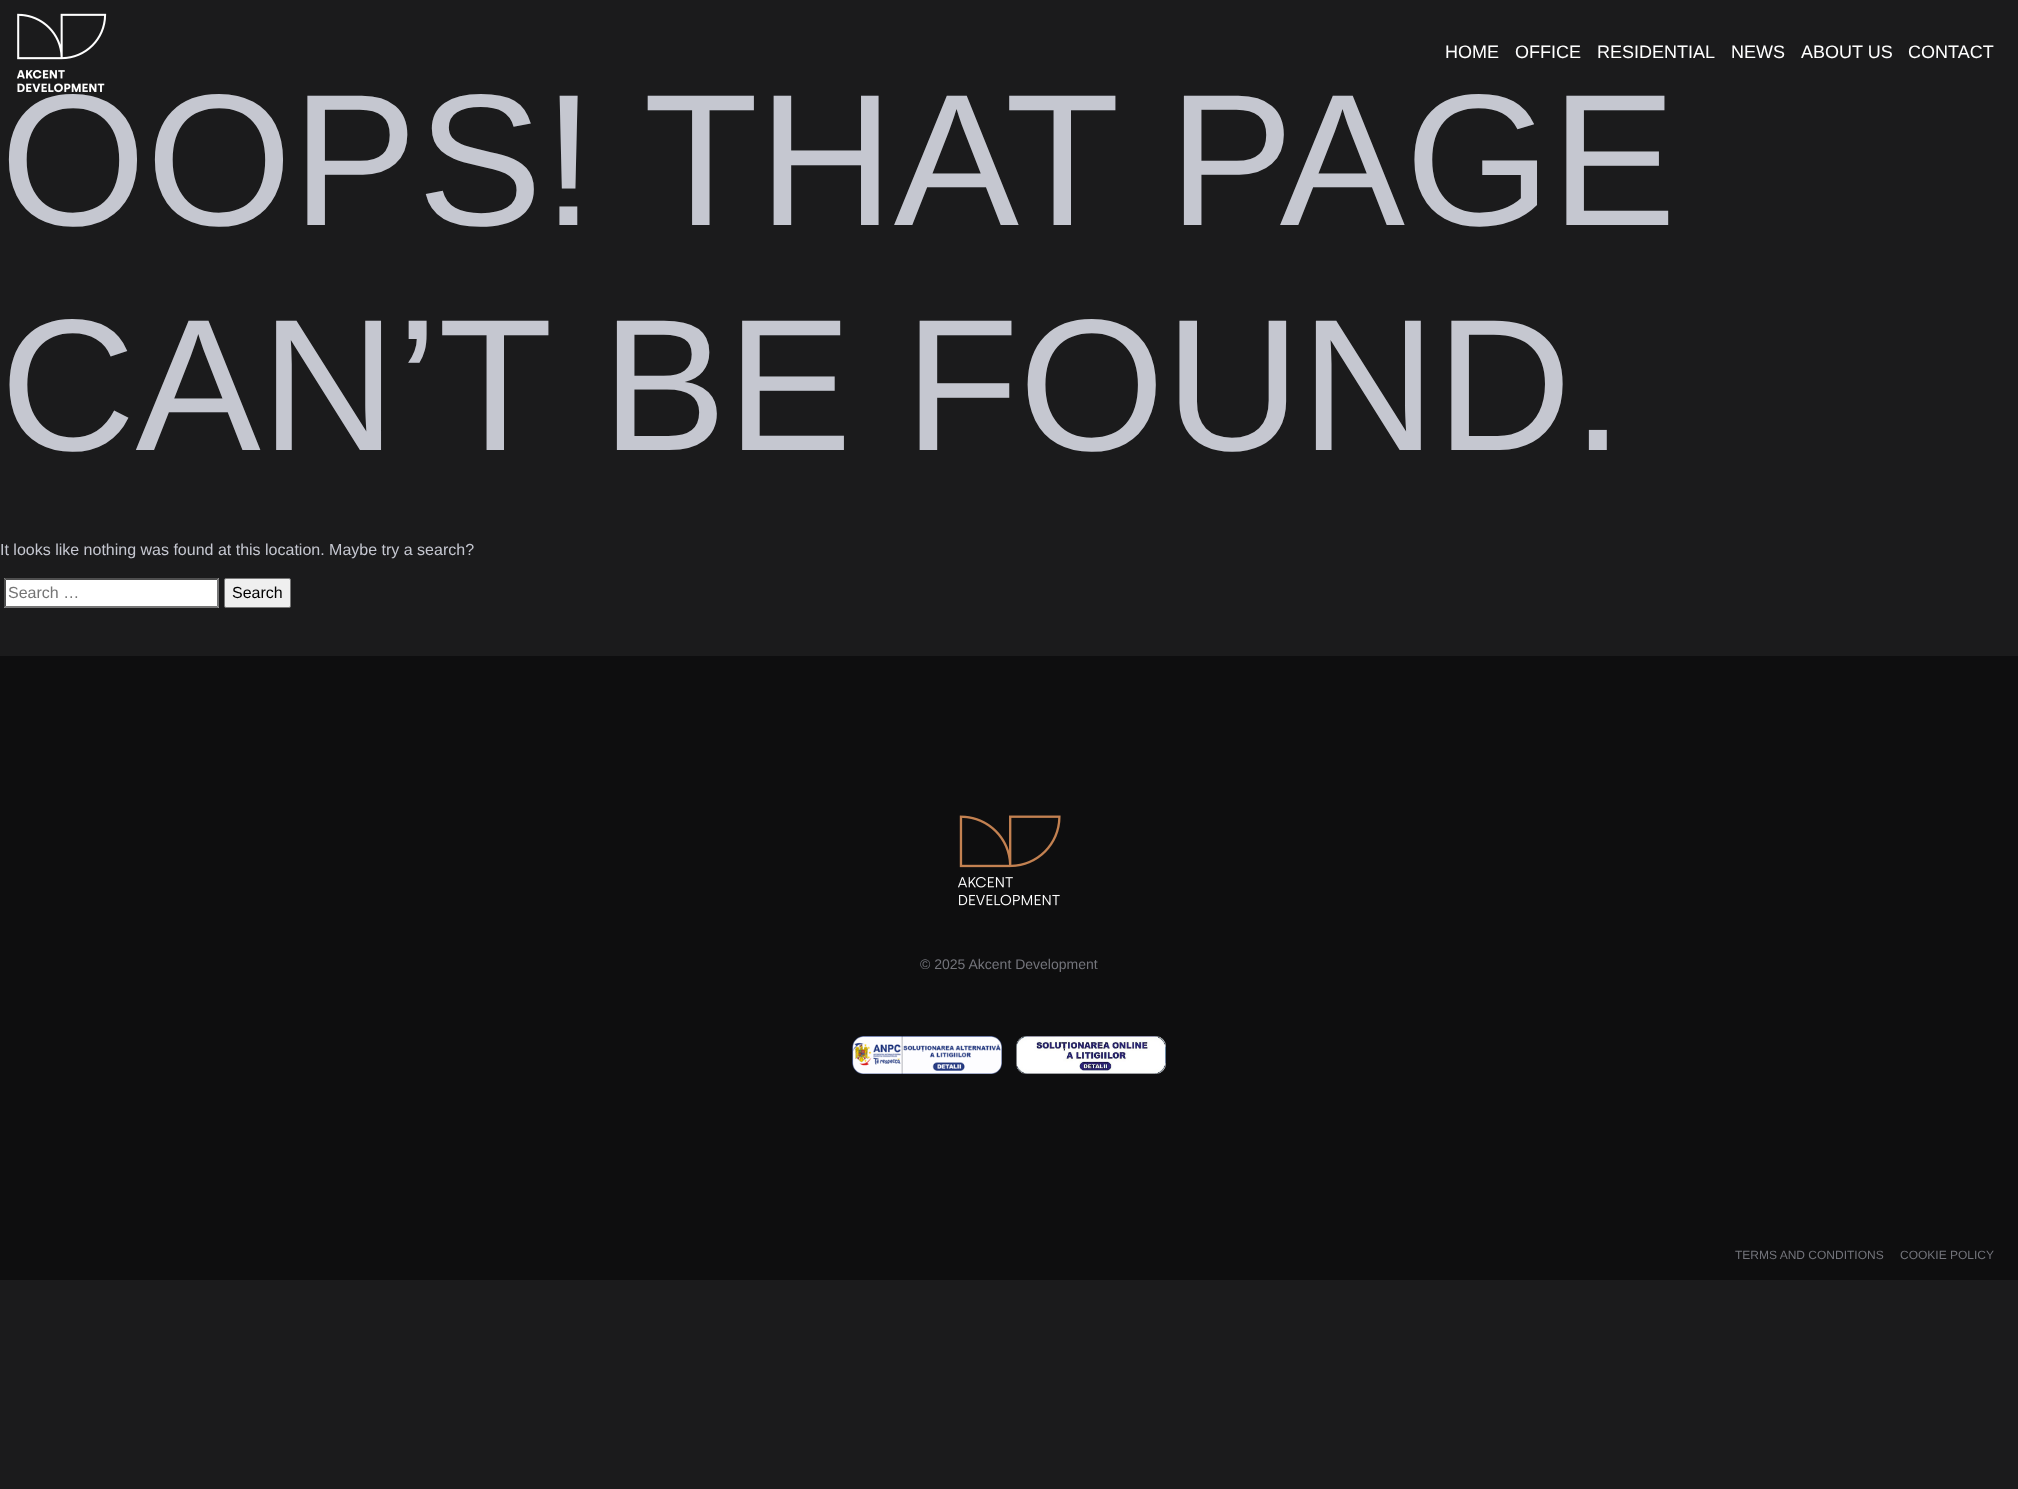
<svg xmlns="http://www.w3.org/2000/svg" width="2018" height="1489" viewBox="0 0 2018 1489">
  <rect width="100%" height="100%" fill="#1b1b1c"/>
  <image x="16" y="13" width="91" height="80" href="img/1.png"/>
  <path d="M4 578h215v30H4z" fill="#fff"/>
  <path d="M4 578H219L217 580H6Z" fill="#4f4f4f"/>
  <path d="M219 578V608L217 606V580Z" fill="#767676"/>
  <path d="M219 608H4L6 606H217Z" fill="#767676"/>
  <path d="M4 608V578L6 580V606Z" fill="#4f4f4f"/>
  <rect x="224.5" y="578.5" width="66" height="29" rx="1.5" fill="#efefef" stroke="#767676"/>
  <path d="M0 656h2018v624H0z" fill="#0e0e0f"/>
  <image x="958" y="815" width="103" height="91" href="img/2.png"/>
  <image x="852" y="1036" width="150" height="38" href="img/3.png"/>
  <image x="1016" y="1036" width="150" height="38" href="img/4.png"/>
  <g font-family="Liberation Sans" font-size="18" fill="#fff">
    <text x="1445" y="58">HOME</text>
    <text x="1515" y="58">OFFICE</text>
    <text x="1597" y="58">RESIDENTIAL</text>
    <text x="1731" y="58">NEWS</text>
    <text x="1801" y="58">ABOUT US</text>
    <text x="1908" y="58">CONTACT</text>
  </g>
  <g font-family="Liberation Sans" font-size="187.75" fill="#c5c7d0">
    <text x="0" y="225">OOPS! THAT PAGE</text>
    <text x="0" y="450">CAN’T BE FOUND.</text>
  </g>
  <text x="0" y="555" font-family="Liberation Sans" font-size="16" fill="#c5c7d0">It looks like nothing was found at this location. Maybe try a search?</text>
  <text x="8" y="598" font-family="Liberation Sans" font-size="16" fill="#757575">Search …</text>
  <text x="232" y="598" font-family="Liberation Sans" font-size="16" fill="#000">Search</text>
  <text x="920" y="969" font-family="Liberation Sans" font-size="14" fill="#73747b">© 2025 Akcent Development</text>
  <g font-family="Liberation Sans" font-size="12" fill="#73747b">
    <text x="1735" y="1259">TERMS AND CONDITIONS</text>
    <text x="1900" y="1259">COOKIE POLICY</text>
  </g>
</svg>
